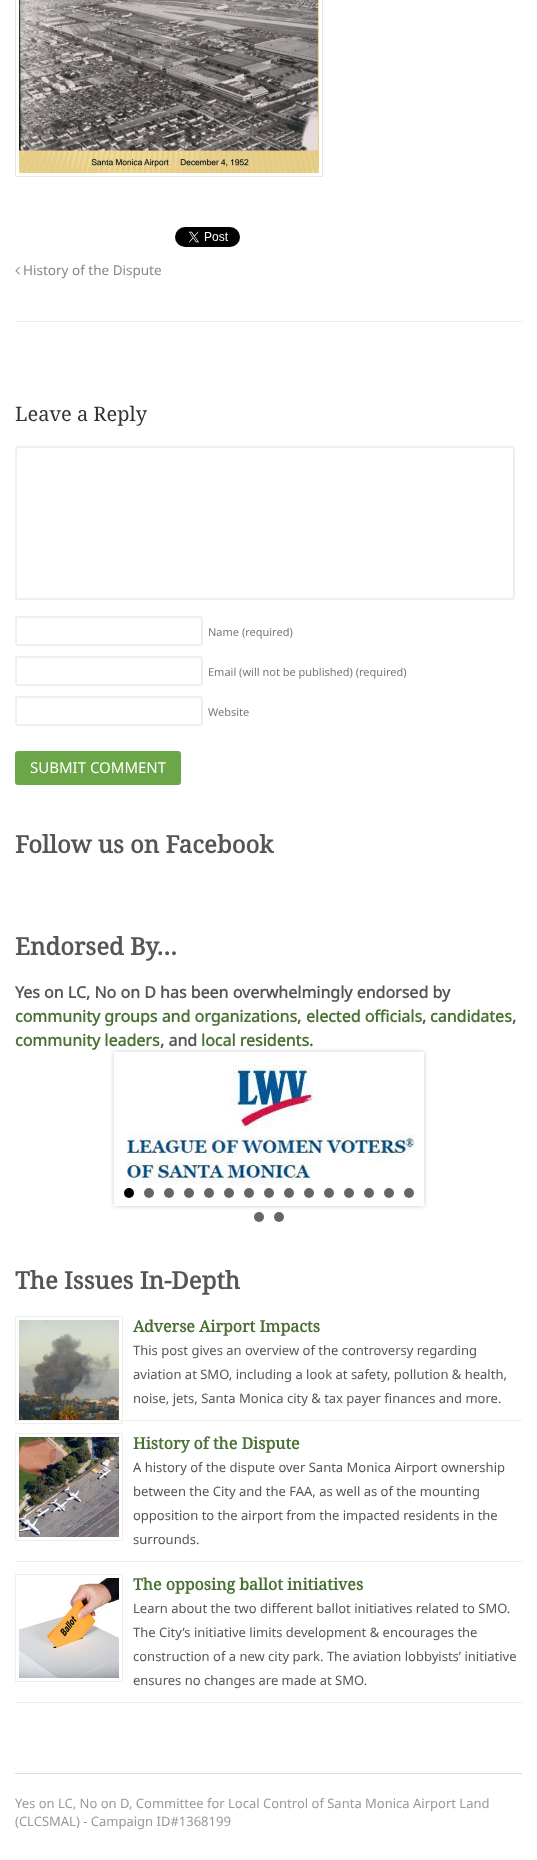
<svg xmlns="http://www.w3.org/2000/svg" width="537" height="1860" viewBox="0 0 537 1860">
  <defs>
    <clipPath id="clip1"><path d="M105 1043H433V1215H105ZM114 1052H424V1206H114Z" clip-rule="evenodd"/></clipPath>
  </defs>
  <rect width="100%" height="100%" fill="#fff"/>
  <path d="M15.5 -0.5h307v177H15.5z" fill="none" stroke="#e6e6e6"/>
  <image x="19" y="0" width="300" height="173" href="img/1.png"/>
  <image x="175" y="227" width="65" height="20" href="img/2.png"/>
  <image x="15" y="267" width="5" height="8" href="img/3.png"/>
  <path d="M15 321h507v1H15z" fill="#ededed"/>
  <rect x="16" y="447" width="498" height="152" rx="2" fill="none" stroke="#efefef" stroke-width="2"/>
  <rect x="16" y="617" width="186" height="28" rx="2" fill="none" stroke="#efefef" stroke-width="2"/>
  <rect x="16" y="657" width="186" height="28" rx="2" fill="none" stroke="#efefef" stroke-width="2"/>
  <rect x="16" y="697" width="186" height="28" rx="2" fill="none" stroke="#efefef" stroke-width="2"/>
  <rect x="15" y="751" width="166" height="34" rx="3" fill="#6ba649"/>
  <g clip-path="url(#clip1)">
    <path d="M114 1052h310v154H114z" fill="#ccc" filter="blur(2.5px)"/>
  </g>
  <image x="127" y="1065" width="288" height="120" href="img/4.png"/>
  <circle cx="129" cy="1193" r="5" fill="#000"/>
  <circle cx="149" cy="1193" r="5" fill="#666"/>
  <circle cx="169" cy="1193" r="5" fill="#666"/>
  <circle cx="189" cy="1193" r="5" fill="#666"/>
  <circle cx="209" cy="1193" r="5" fill="#666"/>
  <circle cx="229" cy="1193" r="5" fill="#666"/>
  <circle cx="249" cy="1193" r="5" fill="#666"/>
  <circle cx="269" cy="1193" r="5" fill="#666"/>
  <circle cx="289" cy="1193" r="5" fill="#666"/>
  <circle cx="309" cy="1193" r="5" fill="#666"/>
  <circle cx="329" cy="1193" r="5" fill="#666"/>
  <circle cx="349" cy="1193" r="5" fill="#666"/>
  <circle cx="369" cy="1193" r="5" fill="#666"/>
  <circle cx="389" cy="1193" r="5" fill="#666"/>
  <circle cx="409" cy="1193" r="5" fill="#666"/>
  <circle cx="259" cy="1217" r="5" fill="#666"/>
  <circle cx="279" cy="1217" r="5" fill="#666"/>
  <path d="M15 1420h507v1H15z" fill="#eee"/>
  <path d="M15.5 1316.5h107v107H15.5z" fill="none" stroke="#eee"/>
  <image x="19" y="1320" width="100" height="100" href="img/5.png"/>
  <path d="M15 1561h507v1H15z" fill="#eee"/>
  <path d="M15.5 1433.5h107v107H15.5z" fill="none" stroke="#eee"/>
  <image x="19" y="1437" width="100" height="100" href="img/6.png"/>
  <path d="M15 1702h507v1H15z" fill="#eee"/>
  <path d="M15.5 1574.5h107v107H15.5z" fill="none" stroke="#eee"/>
  <image x="19" y="1578" width="100" height="100" href="img/7.png"/>
  <path d="M15 1773h507v1H15z" fill="#dbdbdb"/>
  <text x="23" y="275" font-family="Noto Sans" font-size="13.5" fill="#888">History of the Dispute</text>
  <text x="15" y="421" font-family="Noto Serif" font-size="20" fill="#333">Leave a Reply</text>
  <g font-family="Noto Sans" font-size="11" fill="#777">
    <text x="208" y="636">Name (required)</text>
    <text x="208" y="676">Email (will not be published) (required)</text>
    <text x="208" y="716">Website</text>
  </g>
  <text x="30" y="773" font-family="Noto Sans" font-size="15" fill="#fff">SUBMIT COMMENT</text>
  <g font-family="Noto Serif" font-size="24" font-weight="bold" fill="#555">
    <text x="15" y="853">Follow us on Facebook</text>
    <text x="15" y="955">Endorsed By…</text>
  </g>
  <text x="15" y="998" font-family="Noto Sans" font-size="16" font-weight="bold" fill="#555">Yes on LC, No on D has been overwhelmingly endorsed by</text>
  <text x="15" y="1022" font-family="Noto Sans" font-size="16" font-weight="bold" fill="#497033">community groups and organizations</text>
  <text x="297" y="1022" font-family="Noto Sans" font-size="16" font-weight="bold" fill="#555">,</text>
  <text x="306" y="1022" font-family="Noto Sans" font-size="16" font-weight="bold" fill="#497033">elected officials</text>
  <text x="422" y="1022" font-family="Noto Sans" font-size="16" font-weight="bold" fill="#555">,</text>
  <text x="430" y="1022" font-family="Noto Sans" font-size="16" font-weight="bold" fill="#497033">candidates</text>
  <text x="512" y="1022" font-family="Noto Sans" font-size="16" font-weight="bold" fill="#555">,</text>
  <text x="15" y="1046" font-family="Noto Sans" font-size="16" font-weight="bold" fill="#497033">community leaders</text>
  <text x="160" y="1046" font-family="Noto Sans" font-size="16" font-weight="bold" fill="#555">, and</text>
  <text x="201" y="1046" font-family="Noto Sans" font-size="16" font-weight="bold" fill="#497033">local residents</text>
  <text x="309" y="1046" font-family="Noto Sans" font-size="16" font-weight="bold" fill="#555">.</text>
  <text x="15" y="1289" font-family="Noto Serif" font-size="24" font-weight="bold" fill="#555">The Issues In-Depth</text>
  <text x="133" y="1332" font-family="Noto Serif" font-size="16" font-weight="bold" fill="#497033">Adverse Airport Impacts</text>
  <g font-family="Noto Sans" font-size="13" fill="#555">
    <text x="133" y="1355">This post gives an overview of the controversy regarding</text>
    <text x="133" y="1379">aviation at SMO, including a look at safety, pollution &amp; health,</text>
    <text x="133" y="1403">noise, jets, Santa Monica city &amp; tax payer finances and more.</text>
  </g>
  <text x="133" y="1449" font-family="Noto Serif" font-size="16" font-weight="bold" fill="#497033">History of the Dispute</text>
  <g font-family="Noto Sans" font-size="13" fill="#555">
    <text x="133" y="1472">A history of the dispute over Santa Monica Airport ownership</text>
    <text x="133" y="1496">between the City and the FAA, as well as of the mounting</text>
    <text x="133" y="1520">opposition to the airport from the impacted residents in the</text>
    <text x="133" y="1544">surrounds.</text>
  </g>
  <text x="133" y="1590" font-family="Noto Serif" font-size="16" font-weight="bold" fill="#497033">The opposing ballot initiatives</text>
  <g font-family="Noto Sans" font-size="13" fill="#555">
    <text x="133" y="1613">Learn about the two different ballot initiatives related to SMO.</text>
    <text x="133" y="1637">The City’s initiative limits development &amp; encourages the</text>
    <text x="133" y="1661">construction of a new city park. The aviation lobbyists’ initiative</text>
    <text x="133" y="1685">ensures no changes are made at SMO.</text>
  </g>
  <g font-family="Noto Sans" font-size="13" fill="#999">
    <text x="15" y="1808">Yes on LC, No on D, Committee for Local Control of Santa Monica Airport Land</text>
    <text x="15" y="1826">(CLCSMAL) - Campaign ID#1368199</text>
  </g>
</svg>
